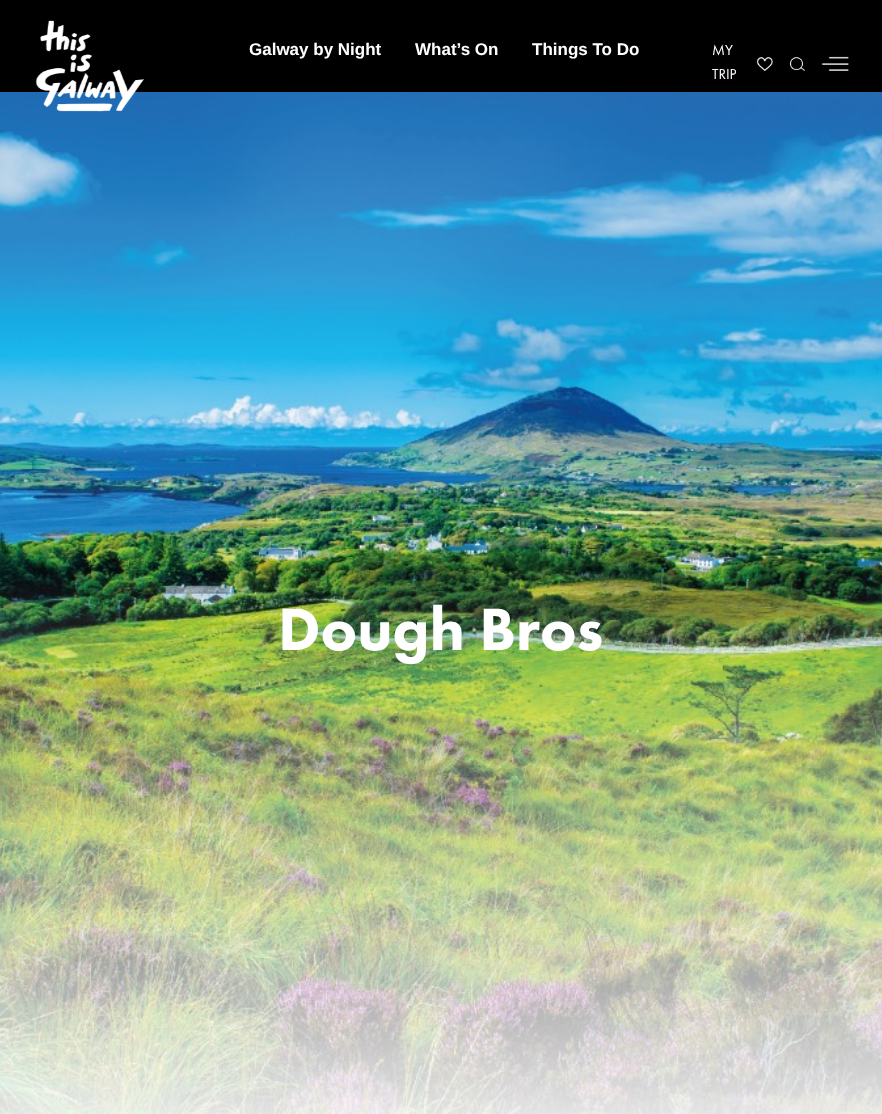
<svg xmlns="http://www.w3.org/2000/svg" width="882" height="1114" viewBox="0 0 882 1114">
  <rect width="100%" height="100%" fill="#fff"/>
  <path d="M0 0h882v92H0z" fill="#000"/>
  <image x="0" y="92" width="882" height="1022" href="img/5.png"/>
  <image x="35" y="20" width="109" height="92" href="img/1.png"/>
  <image x="756" y="57" width="17" height="14" href="img/2.png"/>
  <image x="790" y="57" width="15" height="14" href="img/3.png"/>
  <image x="821" y="56" width="28" height="15" href="img/4.png"/>
  <g font-family="Liberation Sans" font-size="17" font-weight="bold" fill="#fff">
    <text x="249" y="55">Galway by Night</text>
    <text x="415" y="55">What’s On</text>
    <text x="532" y="55">Things To Do</text>
  </g>
  <g font-family="Futura PT" font-size="15" fill="#fff">
    <text x="712" y="55">MY</text>
    <text x="712" y="79">TRIP</text>
  </g>
  <text x="278" y="650" font-family="Futura PT" font-size="62" font-weight="900" fill="#fff">Dough Bros</text>
</svg>
